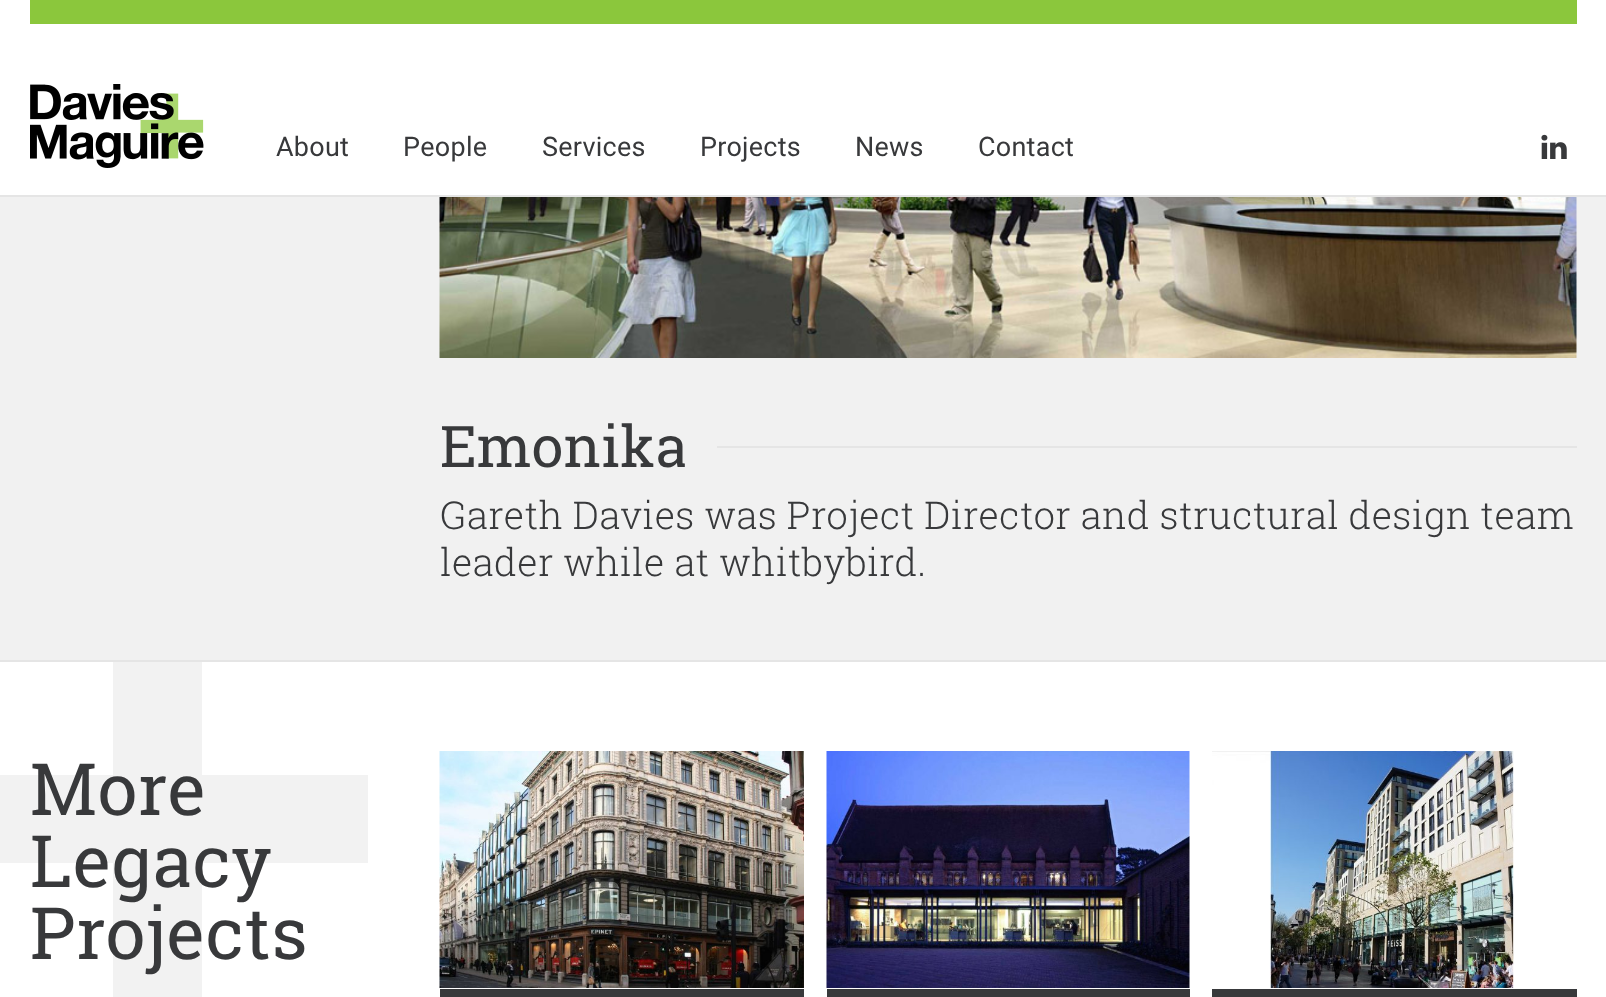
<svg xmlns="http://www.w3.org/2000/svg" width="1606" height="997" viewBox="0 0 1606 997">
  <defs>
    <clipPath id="clip1"><path d="M0 662h368v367H0z"/></clipPath>
  </defs>
  <rect width="100%" height="100%" fill="#fff"/>
  <path d="M0 195h1606v2H0z" fill="#e5e5e5"/>
  <path d="M30 0h1547v24H30z" fill="#8bc73c"/>
  <image x="30" y="84" width="174" height="84" href="img/1.png"/>
  <image x="1541" y="134" width="26" height="25" href="img/2.png"/>
  <path d="M0 197h1606v463H0z" fill="#f1f1f1"/>
  <image x="439" y="197" width="1138" height="161" href="img/3.png"/>
  <path d="M717 446h860v2H717z" fill="#e5e5e5"/>
  <path d="M0 660h1606v2H0z" fill="#e5e5e5"/>
  <g clip-path="url(#clip1)">
    <path d="M368 775H202V609H113V775H-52V863H113V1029H202V863H368Z" fill="#f2f2f2"/>
  </g>
  <image x="439" y="751" width="365" height="237" href="img/4.png"/>
  <path d="M440 989h364v8H440z" fill="#38393b"/>
  <image x="826" y="751" width="364" height="237" href="img/5.png"/>
  <path d="M827 989h363v8H827z" fill="#38393b"/>
  <image x="1212" y="751" width="302" height="237" href="img/6.png"/>
  <path d="M1212 989h365v8H1212z" fill="#38393b"/>
  <g font-family="Roboto" font-size="27" letter-spacing="0.25" fill="#38393b">
    <text x="276" y="156">About</text>
    <text x="403" y="156">People</text>
    <text x="542" y="156">Services</text>
    <text x="700" y="156">Projects</text>
    <text x="855" y="156">News</text>
    <text x="978" y="156">Contact</text>
  </g>
  <text x="440" y="467" font-family="Roboto Slab" font-size="57.5" letter-spacing="0.25" fill="#38393b">Emonika</text>
  <g font-family="Roboto Slab" font-size="38.4" font-weight="300" letter-spacing="0.25" fill="#38393b">
    <text x="440" y="529">Gareth Davies was Project Director and structural design team</text>
    <text x="440" y="576">leader while at whitbybird.</text>
  </g>
  <g font-family="Roboto Slab" font-size="72" letter-spacing="0.25" fill="#38393b">
    <text x="30" y="815">More</text>
    <text x="30" y="887">Legacy</text>
    <text x="30" y="959">Projects</text>
  </g>
</svg>
